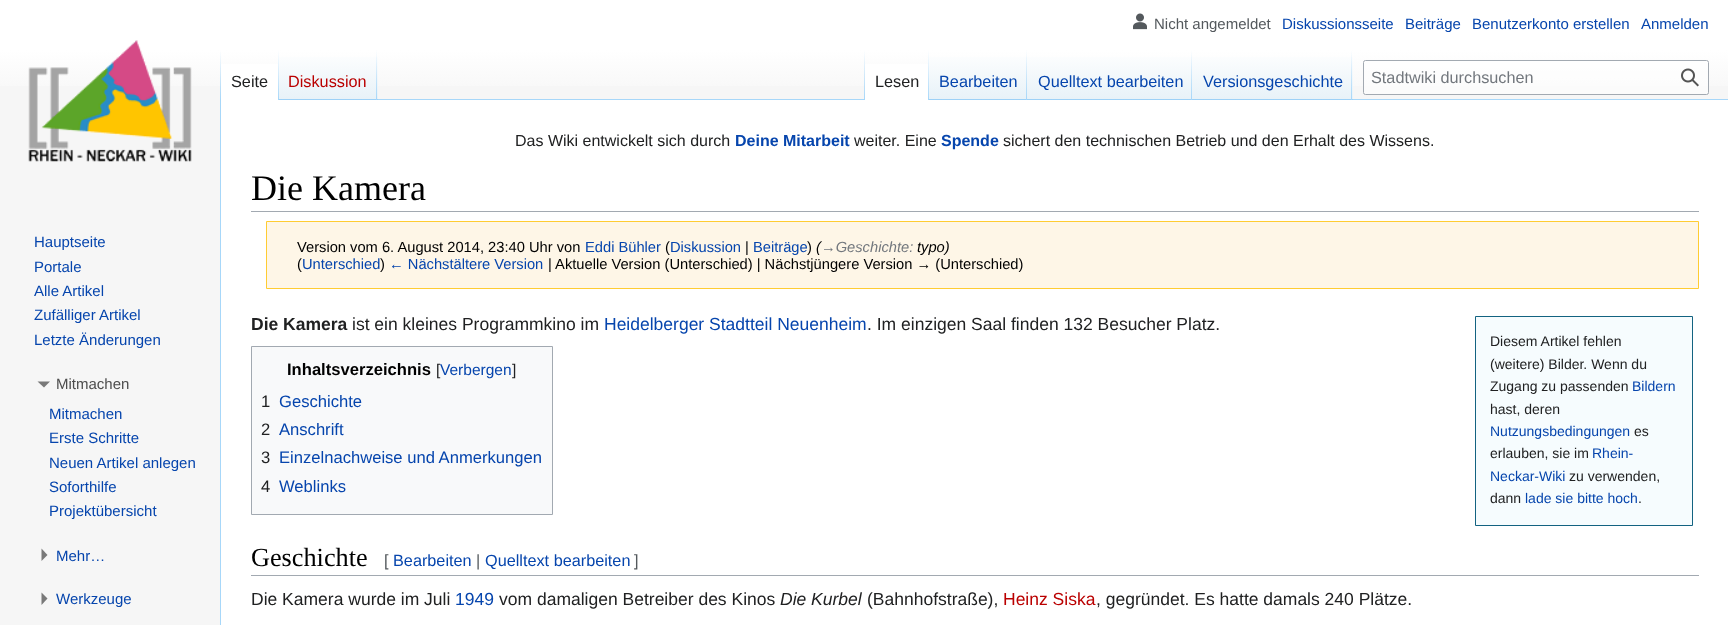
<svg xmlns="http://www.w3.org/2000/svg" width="1728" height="625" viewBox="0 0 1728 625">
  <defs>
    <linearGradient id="g1" gradientUnits="userSpaceOnUse" x1="864" y1="0" x2="864" y2="100"><stop offset="0.5" stop-color="#fff"/><stop offset="1" stop-color="#f6f6f6"/></linearGradient>
    <linearGradient id="g2" gradientUnits="userSpaceOnUse" x1="221" y1="50" x2="221" y2="100"><stop offset="0" stop-color="#a7d7f9" stop-opacity="0"/><stop offset="1" stop-color="#a7d7f9"/></linearGradient>
    <linearGradient id="g3" gradientUnits="userSpaceOnUse" x1="278" y1="50" x2="278" y2="100"><stop offset="0" stop-color="#fff"/><stop offset="1" stop-color="#a7d7f9"/></linearGradient>
    <linearGradient id="g4" gradientUnits="userSpaceOnUse" x1="328" y1="100" x2="328" y2="50"><stop offset="0" stop-color="#77c1f6"/><stop offset="0.03" stop-color="#e8f2f8"/><stop offset="1" stop-color="#fff"/></linearGradient>
    <linearGradient id="g5" gradientUnits="userSpaceOnUse" x1="377" y1="50" x2="377" y2="100"><stop offset="0" stop-color="#a7d7f9" stop-opacity="0"/><stop offset="1" stop-color="#a7d7f9"/></linearGradient>
    <linearGradient id="g6" gradientUnits="userSpaceOnUse" x1="864" y1="50" x2="864" y2="100"><stop offset="0" stop-color="#a7d7f9" stop-opacity="0"/><stop offset="1" stop-color="#a7d7f9"/></linearGradient>
    <linearGradient id="g7" gradientUnits="userSpaceOnUse" x1="928" y1="50" x2="928" y2="100"><stop offset="0" stop-color="#fff"/><stop offset="1" stop-color="#a7d7f9"/></linearGradient>
    <linearGradient id="g8" gradientUnits="userSpaceOnUse" x1="978" y1="100" x2="978" y2="50"><stop offset="0" stop-color="#77c1f6"/><stop offset="0.03" stop-color="#e8f2f8"/><stop offset="1" stop-color="#fff"/></linearGradient>
    <linearGradient id="g9" gradientUnits="userSpaceOnUse" x1="1027" y1="50" x2="1027" y2="100"><stop offset="0" stop-color="#a7d7f9" stop-opacity="0"/><stop offset="1" stop-color="#a7d7f9"/></linearGradient>
    <linearGradient id="g10" gradientUnits="userSpaceOnUse" x1="1110" y1="100" x2="1110" y2="50"><stop offset="0" stop-color="#77c1f6"/><stop offset="0.03" stop-color="#e8f2f8"/><stop offset="1" stop-color="#fff"/></linearGradient>
    <linearGradient id="g11" gradientUnits="userSpaceOnUse" x1="1192" y1="50" x2="1192" y2="100"><stop offset="0" stop-color="#a7d7f9" stop-opacity="0"/><stop offset="1" stop-color="#a7d7f9"/></linearGradient>
    <linearGradient id="g12" gradientUnits="userSpaceOnUse" x1="1273" y1="100" x2="1273" y2="50"><stop offset="0" stop-color="#77c1f6"/><stop offset="0.03" stop-color="#e8f2f8"/><stop offset="1" stop-color="#fff"/></linearGradient>
    <linearGradient id="g13" gradientUnits="userSpaceOnUse" x1="1352" y1="50" x2="1352" y2="100"><stop offset="0" stop-color="#a7d7f9" stop-opacity="0"/><stop offset="1" stop-color="#a7d7f9"/></linearGradient>
  </defs>
  <rect width="100%" height="100%" fill="#f6f6f6"/>
  <path d="M0 0h1728v86H0z" fill="url(#g1)"/>
  <image x="1133" y="13" width="14" height="17" href="img/1.png"/>
  <path d="M220 99h1v526H220z" fill="#a7d7f9"/>
  <path d="M220 50h1v50H220z" fill="url(#g2)"/>
  <path d="M221 64h57v36H221z" fill="#fff"/>
  <path d="M278 50h1v50H278z" fill="url(#g3)"/>
  <path d="M279 57h99v43H279z" fill="url(#g4)"/>
  <path d="M376 50h1v50H376z" fill="url(#g5)"/>
  <path d="M378 99h1350v1H378z" fill="#a7d7f9"/>
  <path d="M864 50h1v50H864z" fill="url(#g6)"/>
  <path d="M865 64h63v36H865z" fill="#fff"/>
  <path d="M928 50h1v50H928z" fill="url(#g7)"/>
  <path d="M929 57h99v43H929z" fill="url(#g8)"/>
  <path d="M1026 50h1v50H1026z" fill="url(#g9)"/>
  <path d="M1028 57h165v43H1028z" fill="url(#g10)"/>
  <path d="M1191 50h1v50H1191z" fill="url(#g11)"/>
  <path d="M1193 57h160v43H1193z" fill="url(#g12)"/>
  <path d="M1351 50h1v50H1351z" fill="url(#g13)"/>
  <rect x="1363.5" y="60.5" width="345" height="34" rx="2" fill="#ffffff80" stroke="#a2a9b1"/>
  <image x="1681" y="68" width="18" height="19" href="img/2.png"/>
  <image x="28" y="40" width="164" height="122" href="img/3.png"/>
  <path d="M50 381.5L44 387.5L37.5 381.5Z" fill="#797979"/>
  <path d="M41.5 548.5L47.5 555L41.5 561Z" fill="#797979"/>
  <path d="M41.5 592.5L47.5 598.5L41.5 605Z" fill="#797979"/>
  <path d="M221 100h1507v525H221z" fill="#fff"/>
  <path d="M251 211h1448v1H251z" fill="#a2a9b1"/>
  <path d="M266.5 221.5h1432v67H266.5z" fill="#fef6e7" stroke="#fc3"/>
  <path d="M251.5 346.5h301v168H251.5z" fill="#f8f9fa" stroke="#a2a9b1"/>
  <path d="M1475.5 316.5h217v209H1475.5z" fill="#f6fcfe" stroke="#136381"/>
  <path d="M251 575h1448v1H251z" fill="#a2a9b1"/>
  <text x="1154" y="29" font-family="Liberation Sans" font-size="15" fill="#54595d">Nicht angemeldet</text>
  <g font-family="Liberation Sans" font-size="15" fill="#0645ad">
    <text x="1282" y="29">Diskussionsseite</text>
    <text x="1405" y="29">Beiträge</text>
    <text x="1472" y="29">Benutzerkonto erstellen</text>
    <text x="1641" y="29">Anmelden</text>
  </g>
  <text x="231" y="87" font-family="Liberation Sans" font-size="16.25" fill="#202122">Seite</text>
  <text x="288" y="87" font-family="Liberation Sans" font-size="16.25" fill="#ba0000">Diskussion</text>
  <text x="875" y="87" font-family="Liberation Sans" font-size="16.25" fill="#202122">Lesen</text>
  <g font-family="Liberation Sans" font-size="16.25" fill="#0645ad">
    <text x="939" y="87">Bearbeiten</text>
    <text x="1038" y="87">Quelltext bearbeiten</text>
    <text x="1203" y="87">Versionsgeschichte</text>
  </g>
  <text x="1371" y="83" font-family="Liberation Sans" font-size="16.25" fill="#72777d">Stadtwiki durchsuchen</text>
  <g font-family="Liberation Sans" font-size="15" fill="#0645ad">
    <text x="34" y="247">Hauptseite</text>
    <text x="34" y="272">Portale</text>
    <text x="34" y="296">Alle Artikel</text>
    <text x="34" y="320">Zufälliger Artikel</text>
    <text x="34" y="345">Letzte Änderungen</text>
  </g>
  <text x="56" y="389" font-family="Liberation Sans" font-size="15" fill="#4d4d4d">Mitmachen</text>
  <g font-family="Liberation Sans" font-size="15" fill="#0645ad">
    <text x="49" y="419">Mitmachen</text>
    <text x="49" y="443">Erste Schritte</text>
    <text x="49" y="468">Neuen Artikel anlegen</text>
    <text x="49" y="492">Soforthilfe</text>
    <text x="49" y="516">Projektübersicht</text>
    <text x="56" y="561">Mehr…</text>
    <text x="56" y="604">Werkzeuge</text>
  </g>
  <text x="515" y="146" font-family="Liberation Sans" font-size="16" fill="#202122">Das Wiki entwickelt sich durch</text>
  <text x="735" y="146" font-family="Liberation Sans" font-size="16" font-weight="bold" fill="#0645ad">Deine Mitarbeit</text>
  <text x="854" y="146" font-family="Liberation Sans" font-size="16" fill="#202122">weiter. Eine</text>
  <text x="941" y="146" font-family="Liberation Sans" font-size="16" font-weight="bold" fill="#0645ad">Spende</text>
  <text x="1003" y="146" font-family="Liberation Sans" font-size="16" fill="#202122">sichert den technischen Betrieb und den Erhalt des Wissens.</text>
  <text x="251" y="200" font-family="Liberation Serif" font-size="36" fill="#000">Die Kamera</text>
  <text x="297" y="252" font-family="Liberation Sans" font-size="14.7" fill="#000">Version vom 6. August 2014, 23:40 Uhr von</text>
  <text x="585" y="252" font-family="Liberation Sans" font-size="14.7" fill="#0645ad">Eddi Bühler</text>
  <text x="665" y="252" font-family="Liberation Sans" font-size="14.7" fill="#000">(</text>
  <text x="670" y="252" font-family="Liberation Sans" font-size="14.7" fill="#0645ad">Diskussion</text>
  <text x="745" y="252" font-family="Liberation Sans" font-size="14.7" fill="#000">|</text>
  <text x="753" y="252" font-family="Liberation Sans" font-size="14.7" fill="#0645ad">Beiträge</text>
  <text x="807" y="252" font-family="Liberation Sans" font-size="14.7" fill="#000">)</text>
  <text x="816" y="252" font-family="Liberation Sans" font-size="14.7" font-style="italic" fill="#000">(</text>
  <text x="821" y="252" font-family="Liberation Sans" font-size="14.7" font-style="italic" fill="#72777d">→Geschichte:</text>
  <text x="917" y="252" font-family="Liberation Sans" font-size="14.7" font-style="italic" fill="#000">typo)</text>
  <text x="297" y="269" font-family="Liberation Sans" font-size="14.7" fill="#000">(</text>
  <text x="302" y="269" font-family="Liberation Sans" font-size="14.7" fill="#0645ad">Unterschied</text>
  <text x="380" y="269" font-family="Liberation Sans" font-size="14.7" fill="#000">)</text>
  <text x="389" y="269" font-family="Liberation Sans" font-size="14.7" fill="#0645ad">← Nächstältere Version</text>
  <text x="548" y="269" font-family="Liberation Sans" font-size="14.7" fill="#000">| Aktuelle Version (Unterschied) | Nächstjüngere Version → (Unterschied)</text>
  <text x="251" y="330" font-family="Liberation Sans" font-size="17.5" font-weight="bold" fill="#202122">Die Kamera</text>
  <text x="352" y="330" font-family="Liberation Sans" font-size="17.5" fill="#202122">ist ein kleines Programmkino im</text>
  <text x="604" y="330" font-family="Liberation Sans" font-size="17.5" fill="#0645ad">Heidelberger Stadtteil Neuenheim</text>
  <text x="867" y="330" font-family="Liberation Sans" font-size="17.5" fill="#202122">. Im einzigen Saal finden 132 Besucher Platz.</text>
  <text x="287" y="375" font-family="Liberation Sans" font-size="16.6" font-weight="bold" fill="#000">Inhaltsverzeichnis</text>
  <text x="436" y="375" font-family="Liberation Sans" font-size="15.5" fill="#202122">[</text>
  <text x="440" y="375" font-family="Liberation Sans" font-size="15.5" fill="#0645ad">Verbergen</text>
  <text x="512" y="375" font-family="Liberation Sans" font-size="15.5" fill="#202122">]</text>
  <text x="261" y="407" font-family="Liberation Sans" font-size="16.6" fill="#202122">1</text>
  <text x="279" y="407" font-family="Liberation Sans" font-size="16.6" fill="#0645ad">Geschichte</text>
  <text x="261" y="435" font-family="Liberation Sans" font-size="16.6" fill="#202122">2</text>
  <text x="279" y="435" font-family="Liberation Sans" font-size="16.6" fill="#0645ad">Anschrift</text>
  <text x="261" y="463" font-family="Liberation Sans" font-size="16.6" fill="#202122">3</text>
  <text x="279" y="463" font-family="Liberation Sans" font-size="16.6" fill="#0645ad">Einzelnachweise und Anmerkungen</text>
  <text x="261" y="492" font-family="Liberation Sans" font-size="16.6" fill="#202122">4</text>
  <text x="279" y="492" font-family="Liberation Sans" font-size="16.6" fill="#0645ad">Weblinks</text>
  <g font-family="Liberation Sans" font-size="14" fill="#202122">
    <text x="1490" y="346">Diesem Artikel fehlen</text>
    <text x="1490" y="369">(weitere) Bilder. Wenn du</text>
    <text x="1490" y="391">Zugang zu passenden</text>
  </g>
  <text x="1632" y="391" font-family="Liberation Sans" font-size="14" fill="#0645ad">Bildern</text>
  <text x="1490" y="414" font-family="Liberation Sans" font-size="14" fill="#202122">hast, deren</text>
  <text x="1490" y="436" font-family="Liberation Sans" font-size="14" fill="#0645ad">Nutzungsbedingungen</text>
  <g font-family="Liberation Sans" font-size="14" fill="#202122">
    <text x="1634" y="436">es</text>
    <text x="1490" y="458">erlauben, sie im</text>
  </g>
  <g font-family="Liberation Sans" font-size="14" fill="#0645ad">
    <text x="1592" y="458">Rhein-</text>
    <text x="1490" y="481">Neckar-Wiki</text>
  </g>
  <g font-family="Liberation Sans" font-size="14" fill="#202122">
    <text x="1569" y="481">zu verwenden,</text>
    <text x="1490" y="503">dann</text>
  </g>
  <text x="1525" y="503" font-family="Liberation Sans" font-size="14" fill="#0645ad">lade sie bitte hoch</text>
  <text x="1638" y="503" font-family="Liberation Sans" font-size="14" fill="#202122">.</text>
  <text x="251" y="566" font-family="Liberation Serif" font-size="26.25" fill="#000">Geschichte</text>
  <text x="384" y="566" font-family="Liberation Sans" font-size="16.25" fill="#54595d">[</text>
  <text x="393" y="566" font-family="Liberation Sans" font-size="16.25" fill="#0645ad">Bearbeiten</text>
  <text x="476" y="566" font-family="Liberation Sans" font-size="16.25" fill="#54595d">|</text>
  <text x="485" y="566" font-family="Liberation Sans" font-size="16.25" fill="#0645ad">Quelltext bearbeiten</text>
  <text x="634" y="566" font-family="Liberation Sans" font-size="16.25" fill="#54595d">]</text>
  <text x="251" y="605" font-family="Liberation Sans" font-size="17.5" fill="#202122">Die Kamera wurde im Juli</text>
  <text x="455" y="605" font-family="Liberation Sans" font-size="17.5" fill="#0645ad">1949</text>
  <text x="499" y="605" font-family="Liberation Sans" font-size="17.5" fill="#202122">vom damaligen Betreiber des Kinos</text>
  <text x="780" y="605" font-family="Liberation Sans" font-size="17.5" font-style="italic" fill="#202122">Die Kurbel</text>
  <text x="867" y="605" font-family="Liberation Sans" font-size="17.5" fill="#202122">(Bahnhofstraße),</text>
  <text x="1003" y="605" font-family="Liberation Sans" font-size="17.5" fill="#ba0000">Heinz Siska</text>
  <text x="1096" y="605" font-family="Liberation Sans" font-size="17.5" fill="#202122">, gegründet. Es hatte damals 240 Plätze.</text>
</svg>
